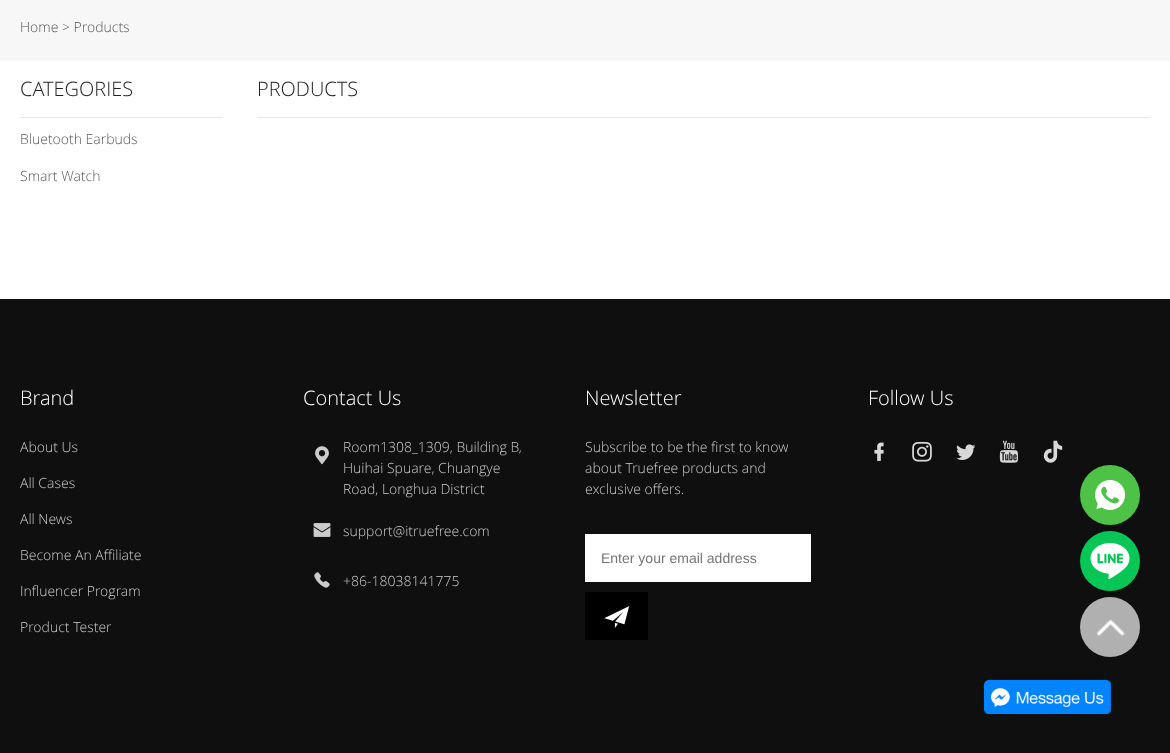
<svg xmlns="http://www.w3.org/2000/svg" width="1170" height="753" viewBox="0 0 1170 753">
  <rect width="100%" height="100%" fill="#fff"/>
  <path d="M0 0h1170v61H0z" fill="#f7f7f7"/>
  <path d="M20 117h203v1H20z" fill="#e8e8e8"/>
  <path d="M257 117h893v1H257z" fill="#e8e8e8"/>
  <path d="M0 299h1170v454H0z" fill="#0f0f0f"/>
  <image x="315" y="446" width="14" height="19" href="img/1.png"/>
  <image x="313" y="523" width="18" height="14" href="img/2.png"/>
  <image x="314" y="572" width="16" height="16" href="img/3.png"/>
  <path d="M585 534h226v48H585z" fill="#fff"/>
  <path d="M585 592h63v48H585z" fill="#000"/>
  <image x="604" y="606" width="26" height="22" href="img/4.png"/>
  <image x="874" y="442" width="10" height="19" href="img/5.png"/>
  <image x="912" y="441" width="20" height="21" href="img/6.png"/>
  <image x="956" y="444" width="20" height="16" href="img/7.png"/>
  <image x="999" y="440" width="19" height="23" href="img/8.png"/>
  <image x="1043" y="440" width="20" height="23" href="img/9.png"/>
  <circle cx="1110" cy="495" r="30" fill="#4dc247"/>
  <image x="1095" y="480" width="30" height="30" href="img/10.png"/>
  <circle cx="1110" cy="561" r="30" fill="#06c755"/>
  <image x="1090" y="543" width="40" height="36" href="img/11.png"/>
  <circle cx="1110" cy="627" r="30" fill="#b0b0b0"/>
  <image x="1096" y="619" width="29" height="17" href="img/12.png"/>
  <image x="983" y="679" width="128" height="35" href="img/13.png"/>
  <text x="20" y="32" font-family="Open Sans" font-size="14" font-weight="300" fill="#555">Home &gt; Products</text>
  <text x="20" y="96" font-family="Open Sans" font-size="20" font-weight="300" fill="#222">CATEGORIES</text>
  <g font-family="Open Sans" font-size="14" font-weight="300" fill="#555">
    <text x="20" y="144">Bluetooth Earbuds</text>
    <text x="20" y="181">Smart Watch</text>
  </g>
  <text x="257" y="96" font-family="Open Sans" font-size="20" font-weight="300" fill="#222">PRODUCTS</text>
  <text x="20" y="405" font-family="Open Sans" font-size="20" font-weight="300" fill="#fff">Brand</text>
  <g font-family="Open Sans" font-size="14" font-weight="300" fill="#ccc">
    <text x="20" y="452">About Us</text>
    <text x="20" y="488">All Cases</text>
    <text x="20" y="524">All News</text>
    <text x="20" y="560">Become An Affiliate</text>
    <text x="20" y="596">Influencer Program</text>
    <text x="20" y="632">Product Tester</text>
  </g>
  <text x="303" y="405" font-family="Open Sans" font-size="20" font-weight="300" fill="#fff">Contact Us</text>
  <g font-family="Open Sans" font-size="14" font-weight="300" fill="#ccc">
    <text x="343" y="452">Room1308_1309, Building B,</text>
    <text x="343" y="473">Huihai Spuare, Chuangye</text>
    <text x="343" y="494">Road, Longhua District</text>
    <text x="343" y="536">support@itruefree.com</text>
    <text x="343" y="586">+86-18038141775</text>
  </g>
  <text x="585" y="405" font-family="Open Sans" font-size="20" font-weight="300" fill="#fff">Newsletter</text>
  <g font-family="Open Sans" font-size="14" font-weight="300" fill="#ccc">
    <text x="585" y="452">Subscribe to be the first to know</text>
    <text x="585" y="473">about Truefree products and</text>
    <text x="585" y="494">exclusive offers.</text>
  </g>
  <text x="601" y="563" font-family="Liberation Sans" font-size="14" fill="#757575">Enter your email address</text>
  <text x="868" y="405" font-family="Open Sans" font-size="20" font-weight="300" fill="#fff">Follow Us</text>
</svg>
